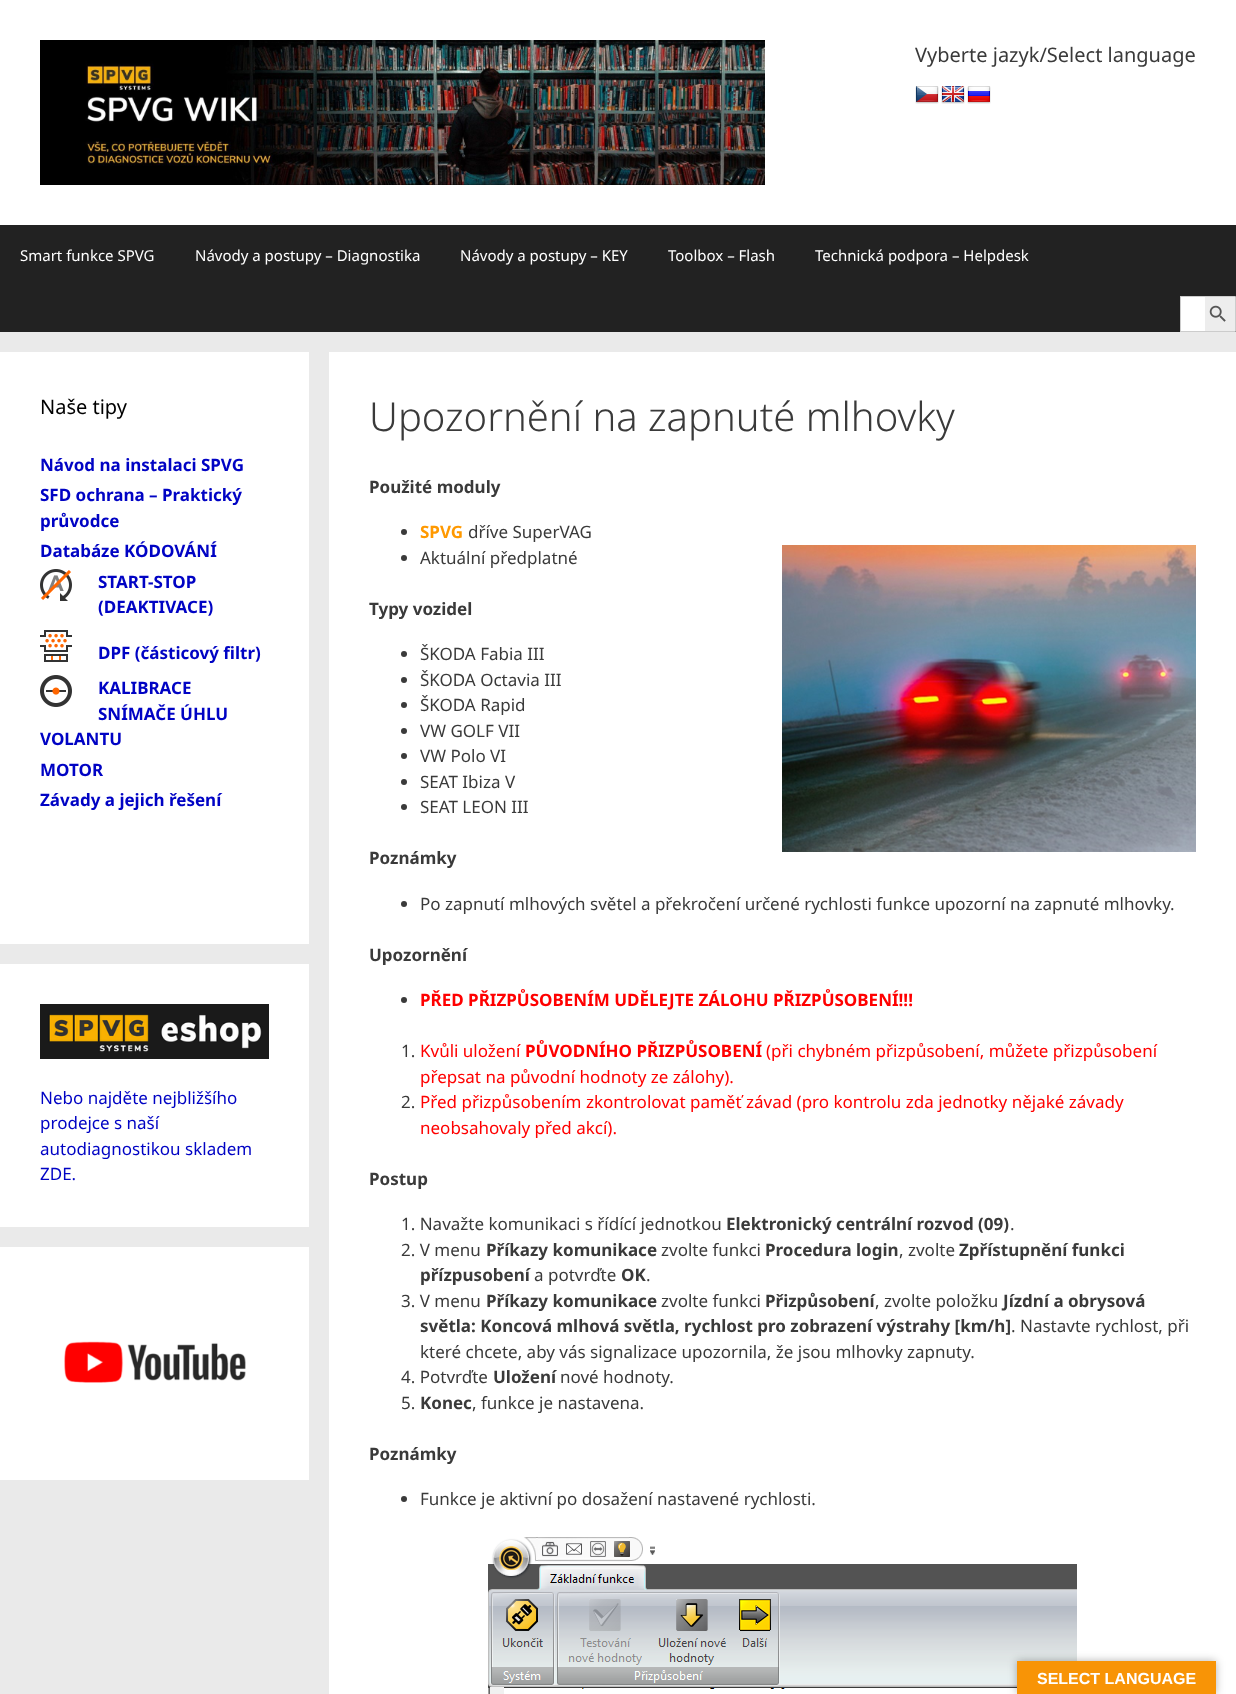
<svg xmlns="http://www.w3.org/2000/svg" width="1236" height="1694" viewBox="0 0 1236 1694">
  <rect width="100%" height="100%" fill="#eaeaea"/>
  <path d="M0 0h1236v225H0z" fill="#fff"/>
  <image x="40" y="40" width="725" height="145" href="img/1.png"/>
  <image x="915" y="86" width="24" height="18" href="img/2.png"/>
  <image x="941" y="86" width="24" height="18" href="img/3.png"/>
  <image x="967" y="86" width="24" height="18" href="img/4.png"/>
  <path d="M0 225h1236v107H0z" fill="#222"/>
  <path d="M1205 297h30v34H1205z" fill="#ededed"/>
  <path d="M1200.5 296.5h35v35H1200.5z" fill="none" stroke="#ccc"/>
  <path d="M1181 297h24v34H1181z" fill="#fff"/>
  <path d="M1180 296h25v1H1180z" fill="#ccc"/>
  <path d="M1180 331h25v1H1180z" fill="#ccc"/>
  <path d="M1180 296h1v36H1180z" fill="#ccc"/>
  <image x="1209" y="305" width="17" height="17" href="img/5.png"/>
  <path d="M0 352h309v592H0z" fill="#fff"/>
  <image x="40" y="569" width="32" height="32" href="img/6.png"/>
  <image x="40" y="630" width="32" height="32" href="img/7.png"/>
  <image x="40" y="675" width="32" height="32" href="img/8.png"/>
  <path d="M0 964h309v263H0z" fill="#fff"/>
  <image x="40" y="1004" width="229" height="55" href="img/9.png"/>
  <path d="M0 1247h309v233H0z" fill="#fff"/>
  <image x="64" y="1341" width="182" height="42" href="img/10.png"/>
  <path d="M329 352h907v1342H329z" fill="#fff"/>
  <circle cx="404" cy="532" r="3" fill="#3a3a3a"/>
  <image x="782" y="545" width="414" height="307" href="img/11.png"/>
  <circle cx="404" cy="558" r="3" fill="#3a3a3a"/>
  <circle cx="404" cy="654" r="3" fill="#3a3a3a"/>
  <circle cx="404" cy="680" r="3" fill="#3a3a3a"/>
  <circle cx="404" cy="705" r="3" fill="#3a3a3a"/>
  <circle cx="404" cy="731" r="3" fill="#3a3a3a"/>
  <circle cx="404" cy="756" r="3" fill="#3a3a3a"/>
  <circle cx="404" cy="782" r="3" fill="#3a3a3a"/>
  <circle cx="404" cy="807" r="3" fill="#3a3a3a"/>
  <circle cx="404" cy="904" r="3" fill="#3a3a3a"/>
  <circle cx="404" cy="1000" r="3" fill="#3a3a3a"/>
  <circle cx="404" cy="1499" r="3" fill="#3a3a3a"/>
  <image x="488" y="1537" width="589" height="157" href="img/12.png"/>
  <path d="M1017 1661h199v33H1017z" fill="#0000004d" filter="blur(4.5px)"/>
  <path d="M1017 1661h199v33H1017z" fill="#f89406"/>
  <text x="915" y="62" font-family="Noto Sans" font-size="20" fill="#3a3a3a">Vyberte jazyk/Select language</text>
  <g font-family="Noto Sans" font-size="15" fill="#fff">
    <text x="20" y="261">Smart funkce SPVG</text>
    <text x="195" y="261">Návody a postupy – Diagnostika</text>
    <text x="460" y="261">Návody a postupy – KEY</text>
    <text x="668" y="261">Toolbox – Flash</text>
    <text x="815" y="261">Technická podpora – Helpdesk</text>
  </g>
  <text x="40" y="414" font-family="Noto Sans" font-size="20" fill="#000">Naše tipy</text>
  <g font-family="Noto Sans" font-size="17" font-weight="bold" fill="#0003c4">
    <text x="40" y="471">Návod na instalaci SPVG</text>
    <text x="40" y="501">SFD ochrana – Praktický</text>
    <text x="40" y="527">průvodce</text>
    <text x="40" y="557">Databáze KÓDOVÁNÍ</text>
    <text x="98" y="588">START-STOP</text>
    <text x="98" y="613">(DEAKTIVACE)</text>
    <text x="98" y="659">DPF (částicový filtr)</text>
    <text x="98" y="694">KALIBRACE</text>
    <text x="98" y="720">SNÍMAČE ÚHLU</text>
    <text x="40" y="745">VOLANTU</text>
    <text x="40" y="776">MOTOR</text>
    <text x="40" y="806">Závady a jejich řešení</text>
  </g>
  <g font-family="Noto Sans" font-size="17" fill="#0003c4">
    <text x="40" y="1104">Nebo najděte nejbližšího</text>
    <text x="40" y="1129">prodejce s naší</text>
    <text x="40" y="1155">autodiagnostikou skladem</text>
    <text x="40" y="1180">ZDE.</text>
  </g>
  <text x="369" y="431" font-family="Noto Sans" font-size="40" font-weight="300" fill="#3a3a3a">Upozornění na zapnuté mlhovky</text>
  <text x="369" y="493" font-family="Noto Sans" font-size="17" font-weight="bold" fill="#3a3a3a">Použité moduly</text>
  <text x="420" y="538" font-family="Noto Sans" font-size="17" font-weight="bold" fill="#f90">SPVG</text>
  <g font-family="Noto Sans" font-size="17" fill="#3a3a3a">
    <text x="468" y="538">dříve SuperVAG</text>
    <text x="420" y="564">Aktuální předplatné</text>
  </g>
  <text x="369" y="615" font-family="Noto Sans" font-size="17" font-weight="bold" fill="#3a3a3a">Typy vozidel</text>
  <g font-family="Noto Sans" font-size="17" fill="#3a3a3a">
    <text x="420" y="660">ŠKODA Fabia III</text>
    <text x="420" y="686">ŠKODA Octavia III</text>
    <text x="420" y="711">ŠKODA Rapid</text>
    <text x="420" y="737">VW GOLF VII</text>
    <text x="420" y="762">VW Polo VI</text>
    <text x="420" y="788">SEAT Ibiza V</text>
    <text x="420" y="813">SEAT LEON III</text>
  </g>
  <text x="369" y="864" font-family="Noto Sans" font-size="17" font-weight="bold" fill="#3a3a3a">Poznámky</text>
  <text x="420" y="910" font-family="Noto Sans" font-size="17" fill="#3a3a3a">Po zapnutí mlhových světel a překročení určené rychlosti funkce upozorní na zapnuté mlhovky.</text>
  <text x="369" y="961" font-family="Noto Sans" font-size="17" font-weight="bold" fill="#3a3a3a">Upozornění</text>
  <text x="420" y="1006" font-family="Noto Sans" font-size="17" font-weight="bold" fill="#f00">PŘED PŘIZPŮSOBENÍM UDĚLEJTE ZÁLOHU PŘIZPŮSOBENÍ!!!</text>
  <text x="401" y="1057" font-family="Noto Sans" font-size="17" fill="#3a3a3a">1.</text>
  <text x="420" y="1057" font-family="Noto Sans" font-size="17" fill="#f00">Kvůli uložení</text>
  <text x="525" y="1057" font-family="Noto Sans" font-size="17" font-weight="bold" fill="#f00">PŮVODNÍHO PŘIZPŮSOBENÍ</text>
  <g font-family="Noto Sans" font-size="17" fill="#f00">
    <text x="766" y="1057">(při chybném přizpůsobení, můžete přizpůsobení</text>
    <text x="420" y="1083">přepsat na původní hodnoty ze zálohy).</text>
  </g>
  <text x="401" y="1108" font-family="Noto Sans" font-size="17" fill="#3a3a3a">2.</text>
  <g font-family="Noto Sans" font-size="17" fill="#f00">
    <text x="420" y="1108">Před přizpůsobením zkontrolovat paměť závad (pro kontrolu zda jednotky nějaké závady</text>
    <text x="420" y="1134">neobsahovaly před akcí).</text>
  </g>
  <text x="369" y="1185" font-family="Noto Sans" font-size="17" font-weight="bold" fill="#3a3a3a">Postup</text>
  <text x="401" y="1230" font-family="Noto Sans" font-size="17" fill="#3a3a3a">1. Navažte komunikaci s řídící jednotkou</text>
  <text x="726" y="1230" font-family="Noto Sans" font-size="17" font-weight="bold" fill="#3a3a3a">Elektronický centrální rozvod (09)</text>
  <g font-family="Noto Sans" font-size="17" fill="#3a3a3a">
    <text x="1010" y="1230">.</text>
    <text x="401" y="1256">2. V menu</text>
  </g>
  <text x="486" y="1256" font-family="Noto Sans" font-size="17" font-weight="bold" fill="#3a3a3a">Příkazy komunikace</text>
  <text x="661" y="1256" font-family="Noto Sans" font-size="17" fill="#3a3a3a">zvolte funkci</text>
  <text x="765" y="1256" font-family="Noto Sans" font-size="17" font-weight="bold" fill="#3a3a3a">Procedura login</text>
  <text x="899" y="1256" font-family="Noto Sans" font-size="17" fill="#3a3a3a">, zvolte</text>
  <g font-family="Noto Sans" font-size="17" font-weight="bold" fill="#3a3a3a">
    <text x="959" y="1256">Zpřístupnění funkci</text>
    <text x="420" y="1281">přízpusobení</text>
  </g>
  <text x="534" y="1281" font-family="Noto Sans" font-size="17" fill="#3a3a3a">a potvrďte</text>
  <text x="621" y="1281" font-family="Noto Sans" font-size="17" font-weight="bold" fill="#3a3a3a">OK</text>
  <g font-family="Noto Sans" font-size="17" fill="#3a3a3a">
    <text x="646" y="1281">.</text>
    <text x="401" y="1307">3. V menu</text>
  </g>
  <text x="486" y="1307" font-family="Noto Sans" font-size="17" font-weight="bold" fill="#3a3a3a">Příkazy komunikace</text>
  <text x="661" y="1307" font-family="Noto Sans" font-size="17" fill="#3a3a3a">zvolte funkci</text>
  <text x="765" y="1307" font-family="Noto Sans" font-size="17" font-weight="bold" fill="#3a3a3a">Přizpůsobení</text>
  <text x="875" y="1307" font-family="Noto Sans" font-size="17" fill="#3a3a3a">, zvolte položku</text>
  <g font-family="Noto Sans" font-size="17" font-weight="bold" fill="#3a3a3a">
    <text x="1003" y="1307">Jízdní a obrysová</text>
    <text x="420" y="1332">světla: Koncová mlhová světla, rychlost pro zobrazení výstrahy [km/h]</text>
  </g>
  <g font-family="Noto Sans" font-size="17" fill="#3a3a3a">
    <text x="1011" y="1332">. Nastavte rychlost, při</text>
    <text x="420" y="1358">které chcete, aby vás signalizace upozornila, že jsou mlhovky zapnuty.</text>
    <text x="401" y="1383">4. Potvrďte</text>
  </g>
  <text x="493" y="1383" font-family="Noto Sans" font-size="17" font-weight="bold" fill="#3a3a3a">Uložení</text>
  <g font-family="Noto Sans" font-size="17" fill="#3a3a3a">
    <text x="560" y="1383">nové hodnoty.</text>
    <text x="401" y="1409">5.</text>
  </g>
  <text x="420" y="1409" font-family="Noto Sans" font-size="17" font-weight="bold" fill="#3a3a3a">Konec</text>
  <text x="472" y="1409" font-family="Noto Sans" font-size="17" fill="#3a3a3a">, funkce je nastavena.</text>
  <text x="369" y="1460" font-family="Noto Sans" font-size="17" font-weight="bold" fill="#3a3a3a">Poznámky</text>
  <text x="420" y="1505" font-family="Noto Sans" font-size="17" fill="#3a3a3a">Funkce je aktivní po dosažení nastavené rychlosti.</text>
  <text x="1037" y="1684" font-family="Liberation Sans" font-size="16" font-weight="bold" fill="#fff">SELECT LANGUAGE</text>
</svg>
